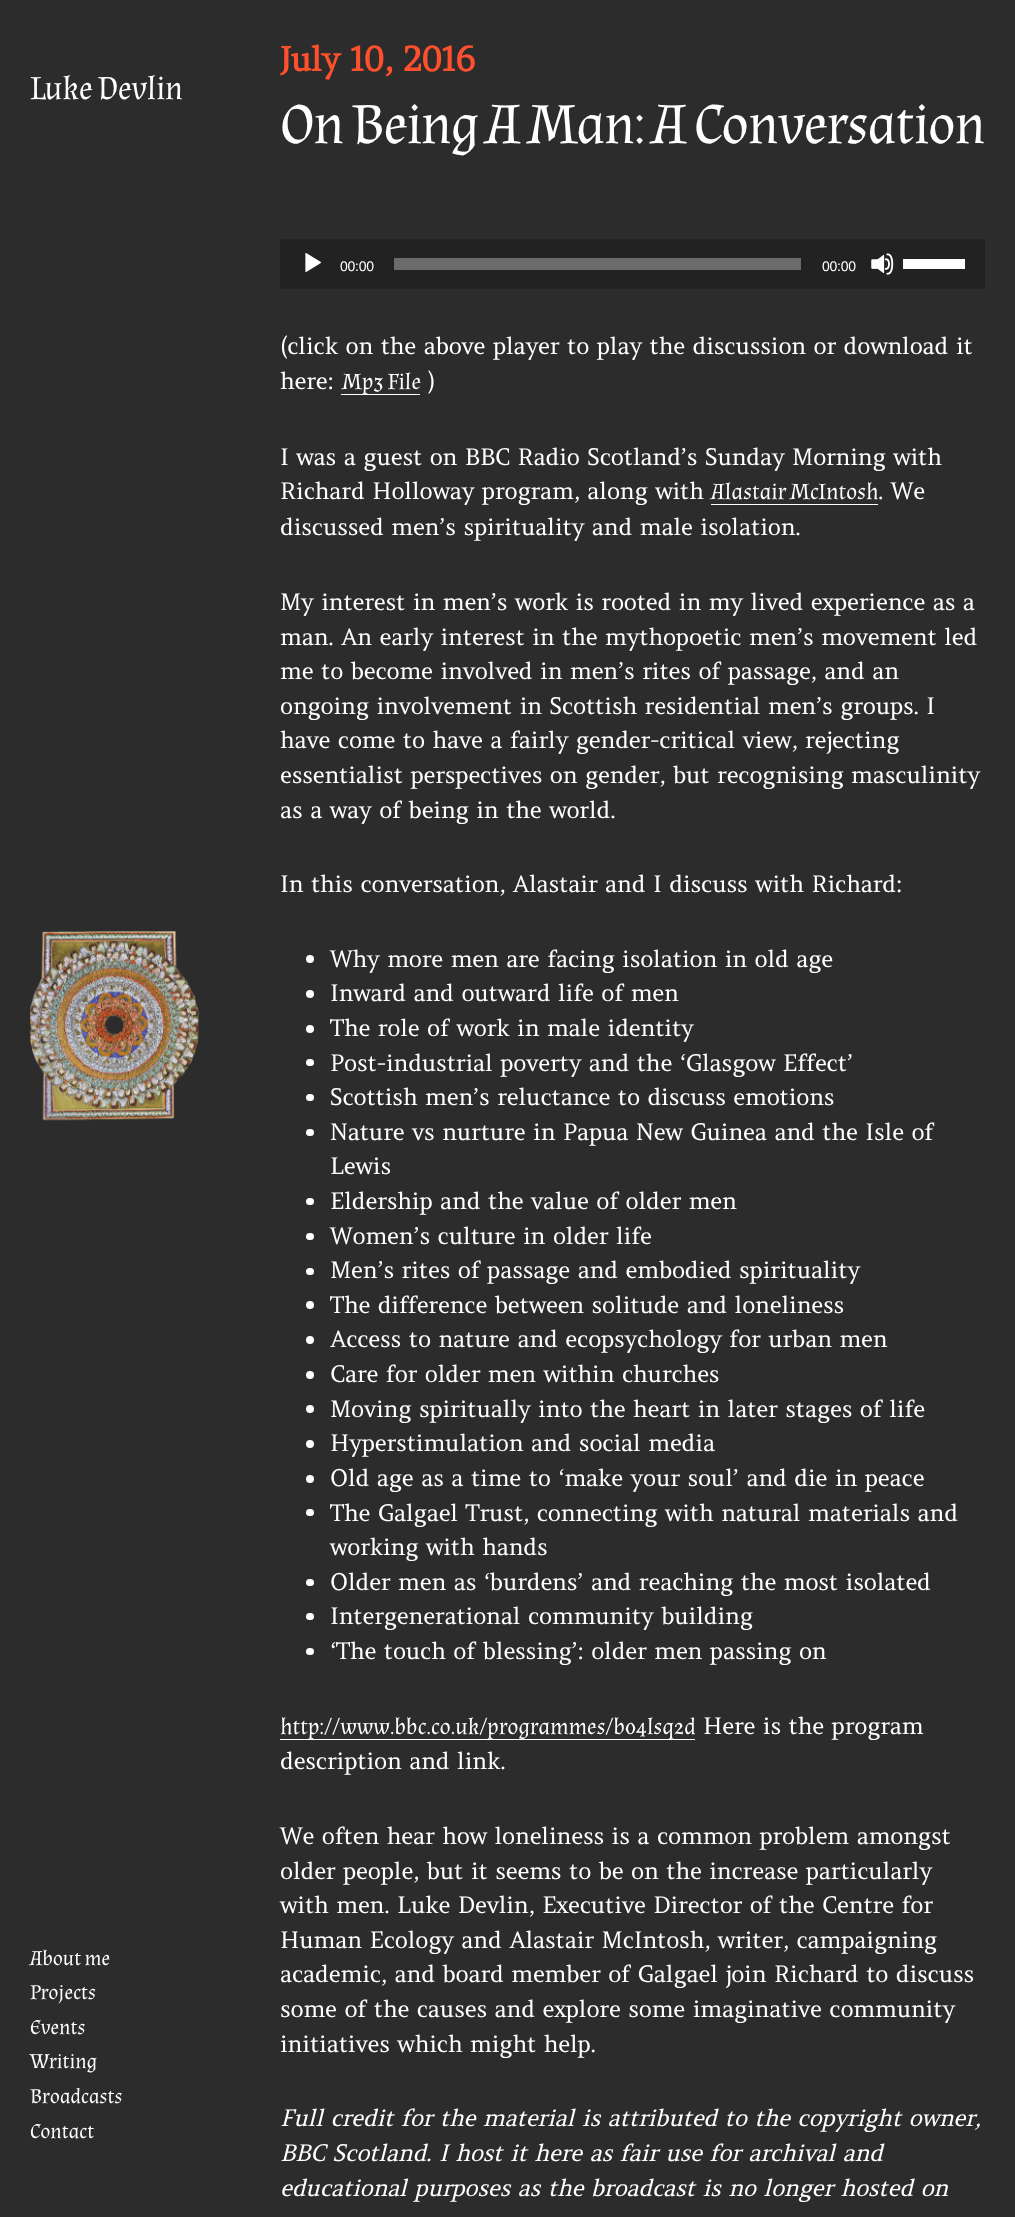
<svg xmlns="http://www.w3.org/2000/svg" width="1015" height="2217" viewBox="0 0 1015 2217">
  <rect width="100%" height="100%" fill="#2c2c2c"/>
  <image x="30" y="931" width="169" height="190" href="img/1.png"/>
  <path d="M280 239h705v50H280z" fill="#222"/>
  <image x="305" y="253" width="16" height="19" href="img/2.png"/>
  <path d="M394 258h407v12H394z" fill="#6b6b6b"/>
  <image x="871" y="253" width="23" height="22" href="img/3.png"/>
  <path d="M903 259h62v10H903z" fill="#fff"/>
  <path d="M341 394h79v1H341z" fill="#fff"/>
  <path d="M711 504h167v1H711z" fill="#fff"/>
  <circle cx="310" cy="959" r="4" fill="#fff"/>
  <circle cx="310" cy="994" r="4" fill="#fff"/>
  <circle cx="310" cy="1029" r="4" fill="#fff"/>
  <rect x="306" y="1059" width="8" height="7" rx="3.5" fill="#fff"/>
  <rect x="306" y="1094" width="8" height="7" rx="3.5" fill="#fff"/>
  <rect x="306" y="1129" width="8" height="7" rx="3.5" fill="#fff"/>
  <rect x="306" y="1198" width="8" height="7" rx="3.5" fill="#fff"/>
  <rect x="306" y="1233" width="8" height="7" rx="3.5" fill="#fff"/>
  <rect x="306" y="1268" width="8" height="7" rx="3.5" fill="#fff"/>
  <circle cx="310" cy="1305" r="4" fill="#fff"/>
  <circle cx="310" cy="1340" r="4" fill="#fff"/>
  <circle cx="310" cy="1375" r="4" fill="#fff"/>
  <circle cx="310" cy="1409" r="4" fill="#fff"/>
  <circle cx="310" cy="1444" r="4" fill="#fff"/>
  <circle cx="310" cy="1479" r="4" fill="#fff"/>
  <rect x="306" y="1509" width="8" height="7" rx="3.5" fill="#fff"/>
  <rect x="306" y="1579" width="8" height="7" rx="3.5" fill="#fff"/>
  <rect x="306" y="1613" width="8" height="7" rx="3.5" fill="#fff"/>
  <rect x="306" y="1648" width="8" height="7" rx="3.5" fill="#fff"/>
  <path d="M280 1739h415v1H280z" fill="#fff"/>
  <text x="30" y="99" font-family="Almendra" font-size="33.5" letter-spacing="-0.7" fill="#fff">Luke Devlin</text>
  <g font-family="Almendra" font-size="21" letter-spacing="-0.23" fill="#fff">
    <text x="30" y="1965">About me</text>
    <text x="30" y="1999">Projects</text>
    <text x="30" y="2034">Events</text>
    <text x="30" y="2068">Writing</text>
    <text x="30" y="2103">Broadcasts</text>
    <text x="30" y="2138">Contact</text>
  </g>
  <text x="280" y="71" font-family="Amethysta" font-size="33.5" font-weight="bold" letter-spacing="-0.7" fill="#ff502d">July 10, 2016</text>
  <text x="280" y="143" font-family="Almendra" font-size="57.7" letter-spacing="-1.75" fill="#fff">On Being A Man: A Conversation</text>
  <g font-family="Liberation Sans" font-size="14" letter-spacing="-0.23" fill="#fff">
    <text x="340" y="271">00:00</text>
    <text x="822" y="271">00:00</text>
  </g>
  <g font-family="Amethysta" font-size="23.1" letter-spacing="-0.23" fill="#fff">
    <text x="280" y="354">(click on the above player to play the discussion or download it</text>
    <text x="280" y="389">here:</text>
  </g>
  <text x="342" y="389" font-family="Almendra" font-size="23.1" letter-spacing="-0.23" fill="#fff">Mp3 File</text>
  <g font-family="Amethysta" font-size="23.1" letter-spacing="-0.23" fill="#fff">
    <text x="428" y="389">)</text>
    <text x="280" y="465">I was a guest on BBC Radio Scotland’s Sunday Morning with</text>
    <text x="280" y="499">Richard Holloway program, along with</text>
  </g>
  <text x="711" y="499" font-family="Almendra" font-size="23.1" letter-spacing="-0.23" fill="#fff">Alastair McIntosh</text>
  <g font-family="Amethysta" font-size="23.1" letter-spacing="-0.23" fill="#fff">
    <text x="878" y="499">. We</text>
    <text x="280" y="535">discussed men’s spirituality and male isolation.</text>
    <text x="280" y="610">My interest in men’s work is rooted in my lived experience as a</text>
    <text x="280" y="645">man. An early interest in the mythopoetic men’s movement led</text>
    <text x="280" y="679">me to become involved in men’s rites of passage, and an</text>
    <text x="280" y="714">ongoing involvement in Scottish residential men’s groups. I</text>
    <text x="280" y="748">have come to have a fairly gender-critical view, rejecting</text>
    <text x="280" y="783">essentialist perspectives on gender, but recognising masculinity</text>
    <text x="280" y="818">as a way of being in the world.</text>
    <text x="280" y="892">In this conversation, Alastair and I discuss with Richard:</text>
    <text x="330" y="967">Why more men are facing isolation in old age</text>
    <text x="330" y="1001">Inward and outward life of men</text>
    <text x="330" y="1036">The role of work in male identity</text>
    <text x="330" y="1071">Post-industrial poverty and the ‘Glasgow Effect’</text>
    <text x="330" y="1105">Scottish men’s reluctance to discuss emotions</text>
    <text x="330" y="1140">Nature vs nurture in Papua New Guinea and the Isle of</text>
    <text x="330" y="1174">Lewis</text>
    <text x="330" y="1209">Eldership and the value of older men</text>
    <text x="330" y="1244">Women’s culture in older life</text>
    <text x="330" y="1278">Men’s rites of passage and embodied spirituality</text>
    <text x="330" y="1313">The difference between solitude and loneliness</text>
    <text x="330" y="1347">Access to nature and ecopsychology for urban men</text>
    <text x="330" y="1382">Care for older men within churches</text>
    <text x="330" y="1417">Moving spiritually into the heart in later stages of life</text>
    <text x="330" y="1451">Hyperstimulation and social media</text>
    <text x="330" y="1486">Old age as a time to ‘make your soul’ and die in peace</text>
    <text x="330" y="1521">The Galgael Trust, connecting with natural materials and</text>
    <text x="330" y="1555">working with hands</text>
    <text x="330" y="1590">Older men as ‘burdens’ and reaching the most isolated</text>
    <text x="330" y="1624">Intergenerational community building</text>
    <text x="330" y="1659">‘The touch of blessing’: older men passing on</text>
  </g>
  <text x="280" y="1734" font-family="Almendra" font-size="23.1" letter-spacing="-0.23" fill="#fff">http://www.bbc.co.uk/programmes/b04lsq2d</text>
  <g font-family="Amethysta" font-size="23.1" letter-spacing="-0.23" fill="#fff">
    <text x="703" y="1734">Here is the program</text>
    <text x="280" y="1769">description and link.</text>
    <text x="280" y="1844">We often hear how loneliness is a common problem amongst</text>
    <text x="280" y="1879">older people, but it seems to be on the increase particularly</text>
    <text x="280" y="1913">with men. Luke Devlin, Executive Director of the Centre for</text>
    <text x="280" y="1948">Human Ecology and Alastair McIntosh, writer, campaigning</text>
    <text x="280" y="1982">academic, and board member of Galgael join Richard to discuss</text>
    <text x="280" y="2017">some of the causes and explore some imaginative community</text>
    <text x="280" y="2052">initiatives which might help.</text>
  </g>
  <g font-family="Amethysta" font-size="23.1" font-style="italic" letter-spacing="-0.23" fill="#fff">
    <text x="280" y="2126">Full credit for the material is attributed to the copyright owner,</text>
    <text x="280" y="2161">BBC Scotland. I host it here as fair use for archival and</text>
    <text x="280" y="2196">educational purposes as the broadcast is no longer hosted on</text>
  </g>
</svg>
